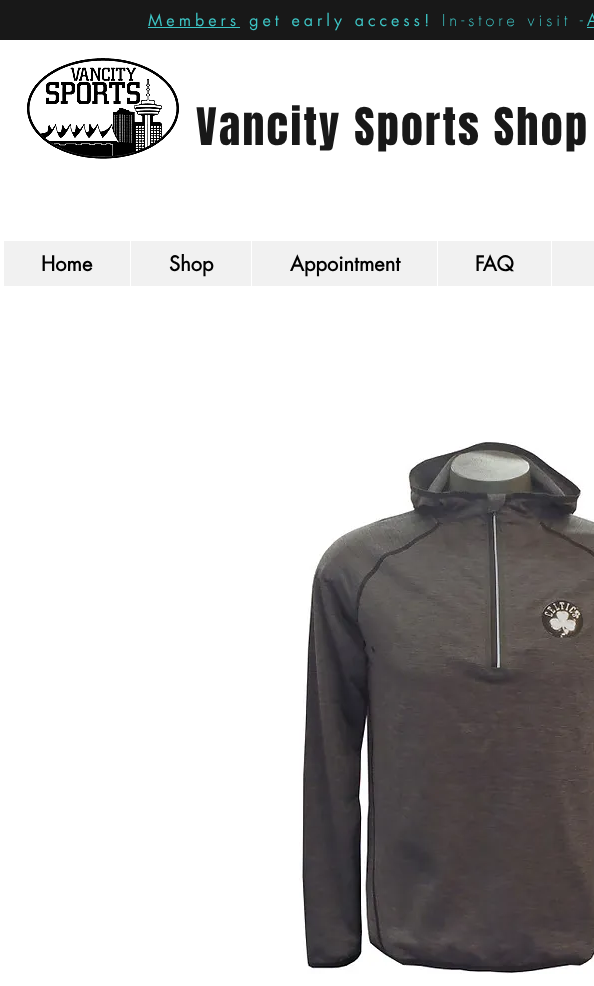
<svg xmlns="http://www.w3.org/2000/svg" width="594" height="986" viewBox="0 0 594 986">
  <rect width="100%" height="100%" fill="#fff"/>
  <path d="M0 0h594v40H0z" fill="#181818"/>
  <path d="M148 27h92v1H148z" fill="#3dc4c4"/>
  <path d="M587 27h7v1H587z" fill="#3dc4c4"/>
  <image x="27" y="58" width="152" height="101" href="img/1.png"/>
  <path d="M4 241h590v45H4z" fill="#f1f1f1"/>
  <path d="M130 241h1v45H130z" fill="#fff"/>
  <path d="M251 241h1v45H251z" fill="#fff"/>
  <path d="M437 241h1v45H437z" fill="#fff"/>
  <path d="M551 241h1v45H551z" fill="#fff"/>
  <image x="299" y="442" width="295" height="532" href="img/2.png"/>
  <text x="148" y="26" font-family="futura" font-size="16" letter-spacing="4" fill="#3dc4c4">Members get early access!</text>
  <text x="442" y="26" font-family="futura" font-size="16" font-weight="300" letter-spacing="4" fill="#3dc4c4">In-store visit -</text>
  <text x="587" y="26" font-family="futura" font-size="16" font-weight="bold" letter-spacing="4" fill="#3dc4c4">A</text>
  <text x="196" y="145" font-family="Anton" font-size="44" letter-spacing="2.25" fill="#181818">Vancity Sports Shop</text>
  <g font-family="'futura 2'" font-size="20" font-weight="bold" fill="#000">
    <text x="41" y="271">Home</text>
    <text x="169" y="271">Shop</text>
    <text x="290" y="271">Appointment</text>
    <text x="475" y="271">FAQ</text>
  </g>
</svg>
